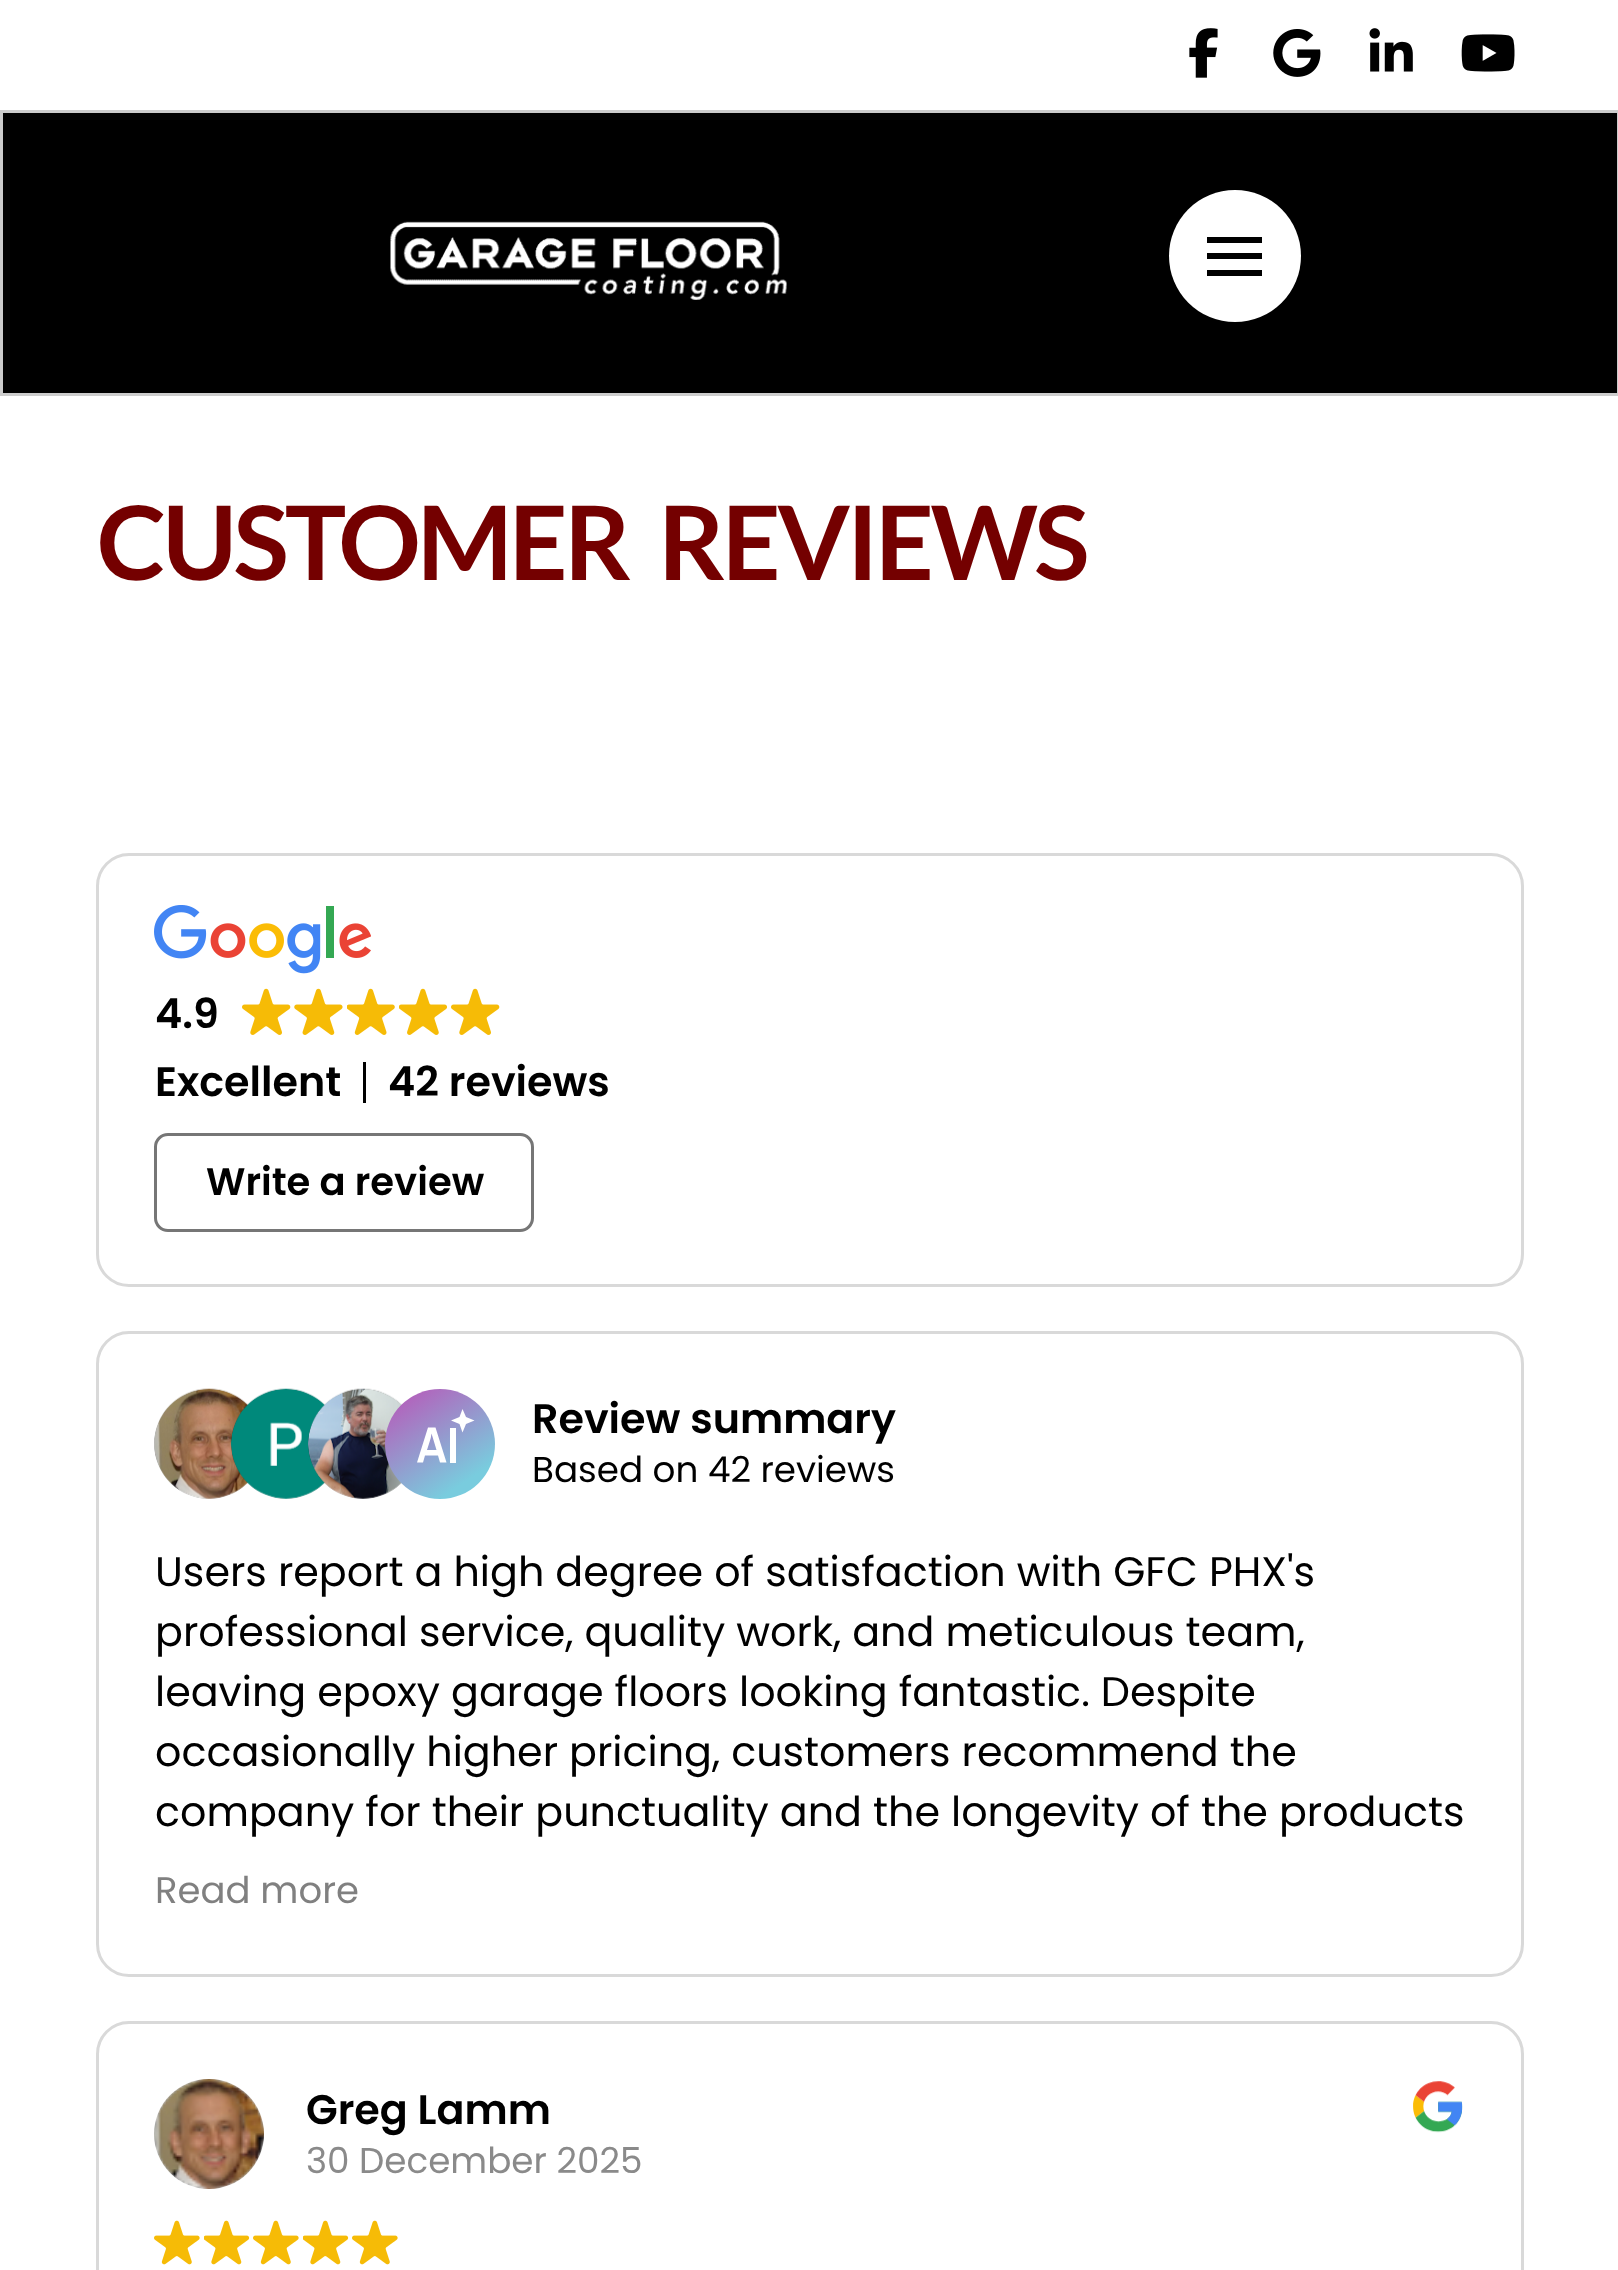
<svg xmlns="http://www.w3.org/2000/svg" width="1618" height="2270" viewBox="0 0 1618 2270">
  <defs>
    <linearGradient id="g1" gradientUnits="userSpaceOnUse" x1="465" y1="1482" x2="409" y2="1397"><stop offset="0" stop-color="#79ccde"/><stop offset="1" stop-color="#b165bd"/></linearGradient>
  </defs>
  <rect width="100%" height="100%" fill="#fff"/>
  <image x="1189" y="28" width="29" height="50" href="img/1.png"/>
  <image x="1273" y="29" width="48" height="48" href="img/2.png"/>
  <image x="1369" y="28" width="44" height="44" href="img/3.png"/>
  <image x="1461" y="34" width="54" height="38" href="img/4.png"/>
  <path d="M1.5 111.5h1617v283H1.5z" fill="#000" stroke="#ccc" stroke-width="3"/>
  <image x="390" y="221" width="397" height="79" href="img/5.png"/>
  <circle cx="1235" cy="256" r="66" fill="#fff"/>
  <path d="M1207 237h55v6H1207z" fill="#000"/>
  <path d="M1207 253h55v6H1207z" fill="#000"/>
  <path d="M1207 270h55v6H1207z" fill="#000"/>
  <rect x="97.5" y="854.5" width="1425" height="431" rx="31.5" fill="none" stroke="#d9d9d9" stroke-width="3"/>
  <image x="154" y="905" width="217" height="69" href="img/6.png"/>
  <image x="242" y="988" width="49" height="47" href="img/7.png"/>
  <image x="294" y="988" width="49" height="47" href="img/8.png"/>
  <image x="347" y="988" width="48" height="47" href="img/9.png"/>
  <image x="399" y="988" width="48" height="47" href="img/10.png"/>
  <image x="451" y="988" width="49" height="47" href="img/7.png"/>
  <path d="M363 1062h3v41H363z" fill="#000"/>
  <rect x="155.5" y="1134.5" width="377" height="96" rx="12.5" fill="none" stroke="#767676" stroke-width="3"/>
  <rect x="97.5" y="1332.5" width="1425" height="643" rx="31.5" fill="none" stroke="#d9d9d9" stroke-width="3"/>
  <image x="154" y="1388" width="95" height="111" href="img/11.png"/>
  <image x="231" y="1388" width="95" height="111" href="img/12.png"/>
  <image x="308" y="1388" width="95" height="111" href="img/13.png"/>
  <circle cx="440" cy="1444" r="55" fill="url(#g1)"/>
  <path d="M466 1424L474.5 1420.5L466 1417L462.5 1409L459.5 1417L451 1420.5L459.5 1424L462.5 1432.5ZM440 1462.5L438 1455.5H425L423 1462.5H417L428 1427.5H435.5L446.5 1462.5ZM431.5 1433.5C431 1439 428.5 1444.5 427 1450H436.5L433.5 1440Z" fill="#fff"/>
  <path d="M450 1428h6v35H450z" fill="#fff"/>
  <rect x="97.5" y="2022.5" width="1425" height="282" rx="31.5" fill="none" stroke="#d9d9d9" stroke-width="3"/>
  <image x="154" y="2079" width="110" height="110" href="img/14.png"/>
  <image x="1413" y="2081" width="50" height="52" href="img/15.png"/>
  <image x="154" y="2220" width="46" height="45" href="img/16.png"/>
  <image x="204" y="2220" width="46" height="45" href="img/17.png"/>
  <image x="253" y="2220" width="46" height="45" href="img/16.png"/>
  <image x="303" y="2220" width="46" height="45" href="img/17.png"/>
  <image x="352" y="2220" width="46" height="45" href="img/16.png"/>
  <text x="97" y="580" word-spacing="14" font-family="Lato" font-size="102.75" font-weight="bold" letter-spacing="-3.6" fill="#740000">CUSTOMER REVIEWS</text>
  <g font-family="Poppins" font-size="41.25" font-weight="600" fill="#000">
    <text x="155" y="1028">4.9</text>
    <text x="155" y="1096">Excellent</text>
    <text x="388" y="1096">42 reviews</text>
  </g>
  <text x="206" y="1195" font-family="Poppins" font-size="38.5" font-weight="600" fill="#000">Write a review</text>
  <text x="532" y="1433" font-family="Poppins" font-size="41.25" font-weight="600" fill="#000">Review summary</text>
  <text x="532" y="1482" font-family="Poppins" font-size="35.75" fill="#000">Based on 42 reviews</text>
  <g font-family="Poppins" font-size="41.25" fill="#000">
    <text x="155" y="1586">Users report a high degree of satisfaction with GFC PHX's</text>
    <text x="155" y="1646">professional service, quality work, and meticulous team,</text>
    <text x="155" y="1706">leaving epoxy garage floors looking fantastic. Despite</text>
    <text x="155" y="1766">occasionally higher pricing, customers recommend the</text>
    <text x="155" y="1826">company for their punctuality and the longevity of the products</text>
  </g>
  <text x="155" y="1903" font-family="Poppins" font-size="37" fill="#808080">Read more</text>
  <text x="306" y="2124" font-family="Poppins" font-size="41.25" font-weight="600" fill="#000">Greg Lamm</text>
  <text x="306" y="2173" font-family="Poppins" font-size="35.75" fill="#8a8a8a">30 December 2025</text>
</svg>
